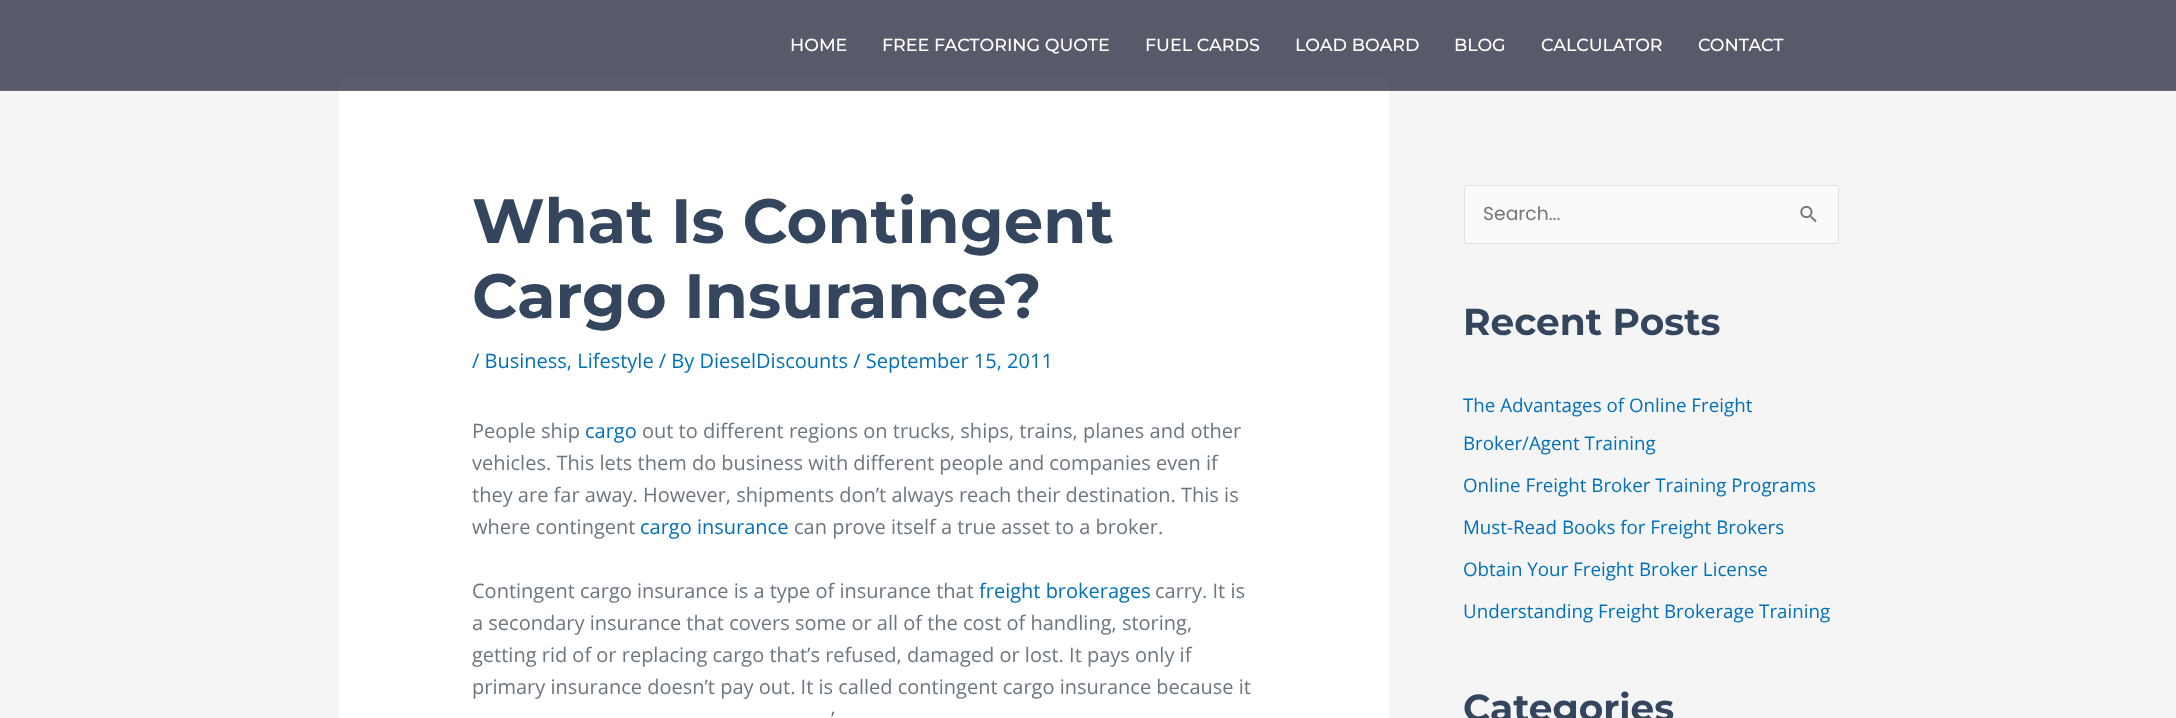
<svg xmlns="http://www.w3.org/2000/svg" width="2176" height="718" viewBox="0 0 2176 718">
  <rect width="100%" height="100%" fill="#f5f5f5"/>
  <path d="M0 0h2176v90H0z" fill="#595a69"/>
  <path d="M0 90h2176v1H0z" fill="#6a6b78"/>
  <path d="M339 91h1050v627H339z" fill="#fff"/>
  <path d="M339 78h1050v12H339z" fill="#5c5d6c"/>
  <path d="M339 90h1050v1H339z" fill="#6c6d7b"/>
  <rect x="1464.5" y="185.5" width="374" height="58" rx="2" fill="#fafafa" stroke="#e1e1e1"/>
  <image x="1800" y="205" width="17" height="18" href="img/1.png"/>
  <g font-family="Montserrat" font-size="17.5" font-weight="500" fill="#fff">
    <text x="790" y="51">HOME</text>
    <text x="882" y="51">FREE FACTORING QUOTE</text>
    <text x="1145" y="51">FUEL CARDS</text>
    <text x="1295" y="51">LOAD BOARD</text>
    <text x="1454" y="51">BLOG</text>
    <text x="1541" y="51">CALCULATOR</text>
    <text x="1698" y="51">CONTACT</text>
  </g>
  <g font-family="Montserrat" font-size="62.5" font-weight="bold" fill="#34455e">
    <text x="472" y="243">What Is Contingent</text>
    <text x="472" y="318">Cargo Insurance?</text>
  </g>
  <text x="472" y="368" font-family="Open Sans" font-size="20" fill="#0170b9">/ Business, Lifestyle / By DieselDiscounts / September 15, 2011</text>
  <text x="472" y="438" font-family="Open Sans" font-size="20" fill="#6c767f">People ship</text>
  <text x="585" y="438" font-family="Open Sans" font-size="20" fill="#0170b9">cargo</text>
  <g font-family="Open Sans" font-size="20" fill="#6c767f">
    <text x="642" y="438">out to different regions on trucks, ships, trains, planes and other</text>
    <text x="472" y="470">vehicles. This lets them do business with different people and companies even if</text>
    <text x="472" y="502">they are far away. However, shipments don’t always reach their destination. This is</text>
    <text x="472" y="534">where contingent</text>
  </g>
  <text x="640" y="534" font-family="Open Sans" font-size="20" fill="#0170b9">cargo insurance</text>
  <g font-family="Open Sans" font-size="20" fill="#6c767f">
    <text x="794" y="534">can prove itself a true asset to a broker.</text>
    <text x="472" y="598">Contingent cargo insurance is a type of insurance that</text>
  </g>
  <text x="979" y="598" font-family="Open Sans" font-size="20" fill="#0170b9">freight brokerages</text>
  <g font-family="Open Sans" font-size="20" fill="#6c767f">
    <text x="1155" y="598">carry. It is</text>
    <text x="472" y="630">a secondary insurance that covers some or all of the cost of handling, storing,</text>
    <text x="472" y="662">getting rid of or replacing cargo that’s refused, damaged or lost. It pays only if</text>
    <text x="472" y="694">primary insurance doesn’t pay out. It is called contingent cargo insurance because it</text>
    <text x="831" y="726">’</text>
  </g>
  <text x="1483" y="220" font-family="Poppins" font-size="18.75" fill="#757575">Search...</text>
  <text x="1463" y="335" font-family="Montserrat" font-size="37.5" font-weight="bold" fill="#34455e">Recent Posts</text>
  <g font-family="Open Sans" font-size="18.75" fill="#0170b9">
    <text x="1463" y="412">The Advantages of Online Freight</text>
    <text x="1463" y="450">Broker/Agent Training</text>
    <text x="1463" y="492">Online Freight Broker Training Programs</text>
    <text x="1463" y="534">Must-Read Books for Freight Brokers</text>
    <text x="1463" y="576">Obtain Your Freight Broker License</text>
    <text x="1463" y="618">Understanding Freight Brokerage Training</text>
  </g>
  <text x="1463" y="721" font-family="Montserrat" font-size="37.5" font-weight="bold" fill="#34455e">Categories</text>
</svg>
